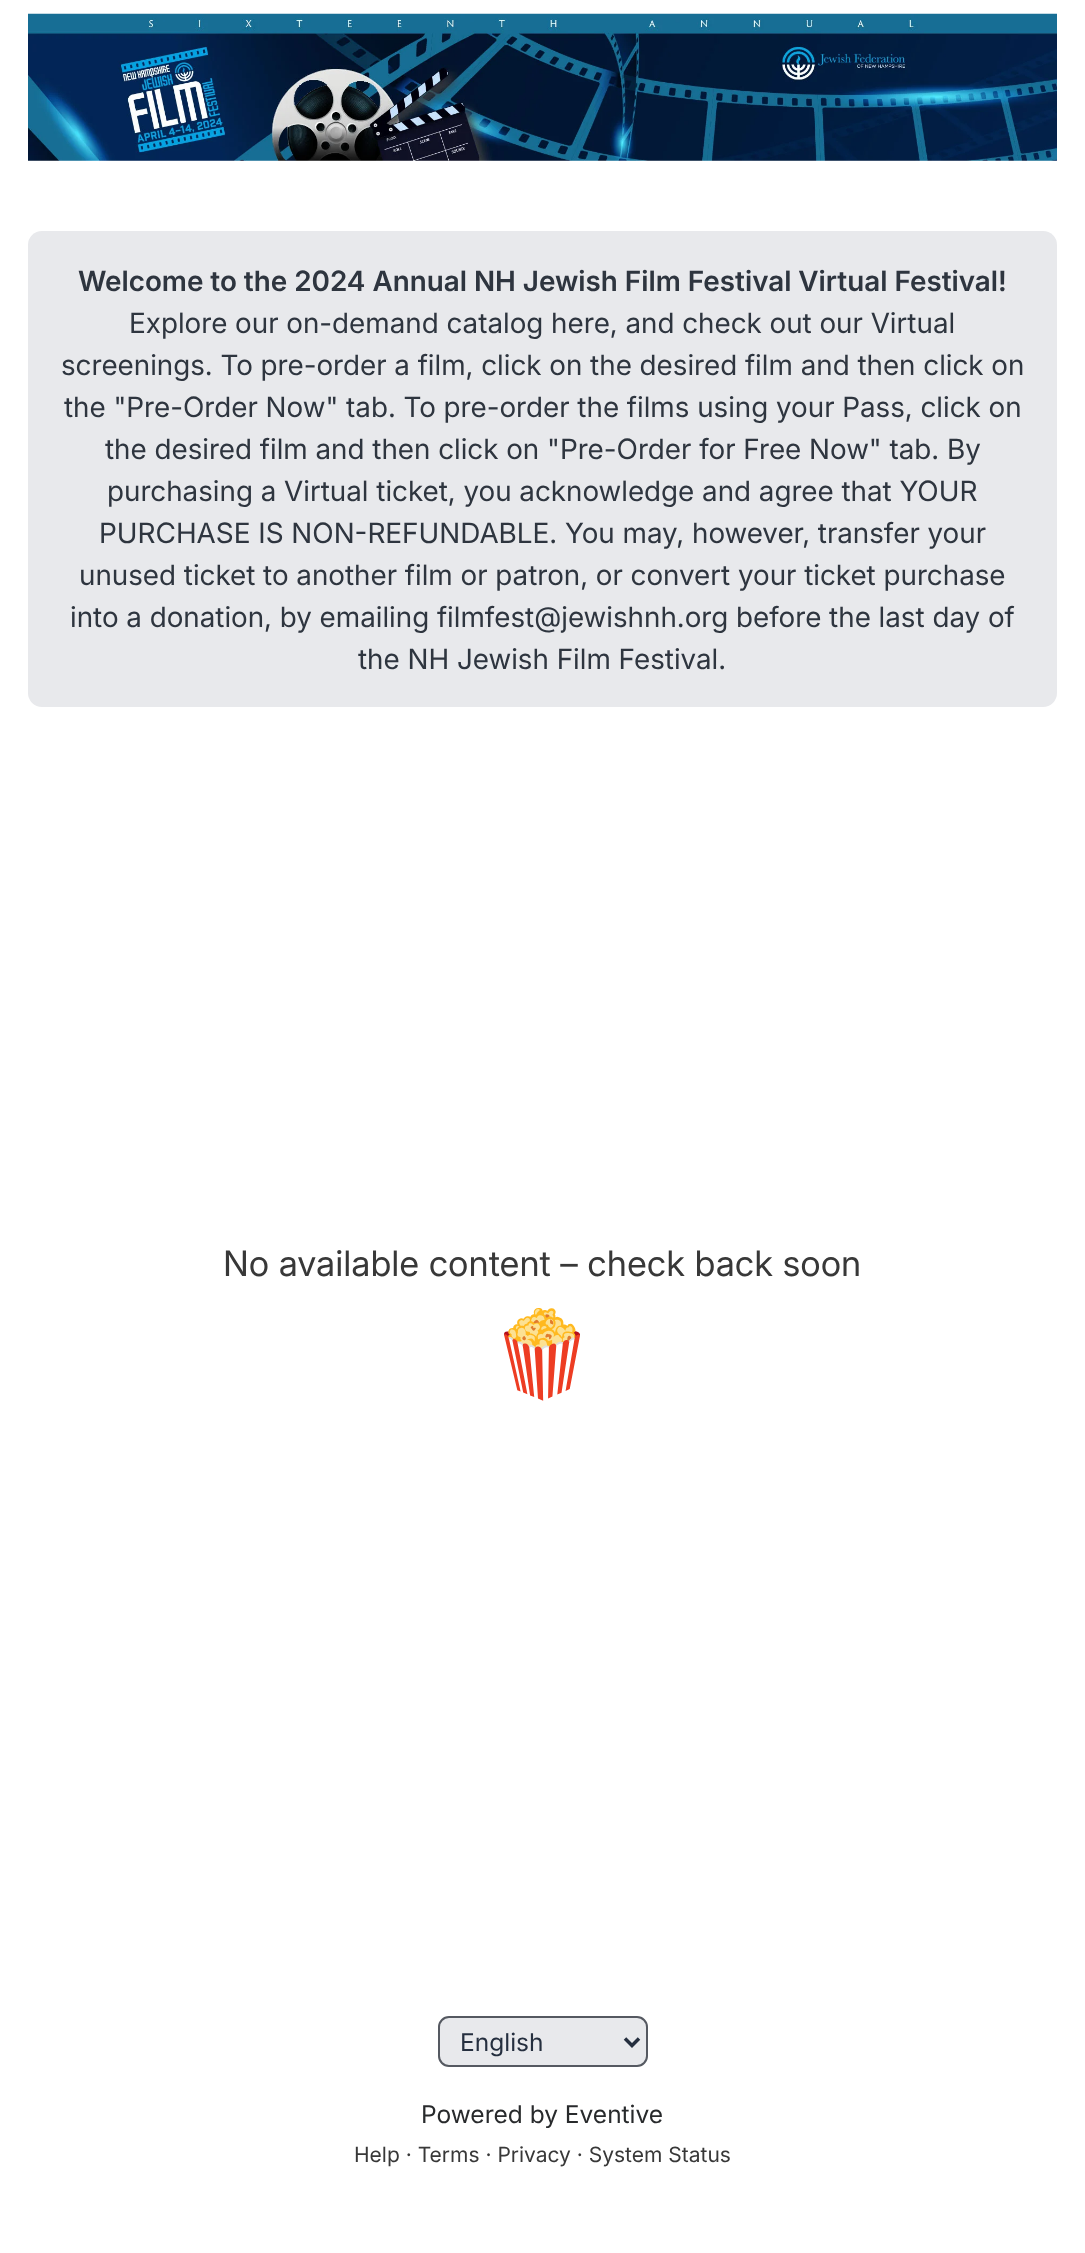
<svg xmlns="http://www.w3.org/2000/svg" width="1085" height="2253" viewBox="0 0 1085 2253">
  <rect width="100%" height="100%" fill="#fff"/>
  <image x="28" y="13" width="1029" height="148" href="img/1.png"/>
  <rect x="28" y="231" width="1029" height="476" rx="14" fill="#e8e9ec"/>
  <rect x="439" y="2017" width="208" height="49" rx="10" fill="#e8e9ec" stroke="#555961" stroke-width="2"/>
  <path d="M625 2038.5L632 2045.5L639 2038.5" fill="none" stroke="#252f3f" stroke-width="3.5"/>
  <text x="78" y="291" font-family="Inter" font-size="28" font-weight="600" fill="#2e353f">Welcome to the 2024 Annual NH Jewish Film Festival Virtual Festival!</text>
  <g font-family="Inter" font-size="28" fill="#2e353f">
    <text x="129" y="333">Explore our on-demand catalog here, and check out our Virtual</text>
    <text x="61" y="375">screenings. To pre-order a film, click on the desired film and then click on</text>
    <text x="64" y="417">the "Pre-Order Now" tab. To pre-order the films using your Pass, click on</text>
    <text x="105" y="459">the desired film and then click on "Pre-Order for Free Now" tab. By</text>
    <text x="107" y="501">purchasing a Virtual ticket, you acknowledge and agree that YOUR</text>
    <text x="99" y="543">PURCHASE IS NON-REFUNDABLE. You may, however, transfer your</text>
    <text x="79" y="585">unused ticket to another film or patron, or convert your ticket purchase</text>
    <text x="70" y="627">into a donation, by emailing filmfest@jewishnh.org before the last day of</text>
    <text x="358" y="669">the NH Jewish Film Festival.</text>
  </g>
  <text x="223" y="1276" font-family="'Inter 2'" font-size="35" fill="#383838">No available content – check back soon</text>
  <text x="490" y="1383" font-family="Noto Color Emoji" font-size="84" fill="#000">🍿</text>
  <text x="460" y="2051" font-family="'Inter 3'" font-size="24.5" fill="#252f3f">English</text>
  <text x="421" y="2123" font-family="'Inter 3'" font-size="24.5" fill="#282a2c">Powered by Eventive</text>
  <text x="354" y="2162" font-family="'Inter 3'" font-size="21" fill="#383838">Help · Terms · Privacy · System Status</text>
</svg>
